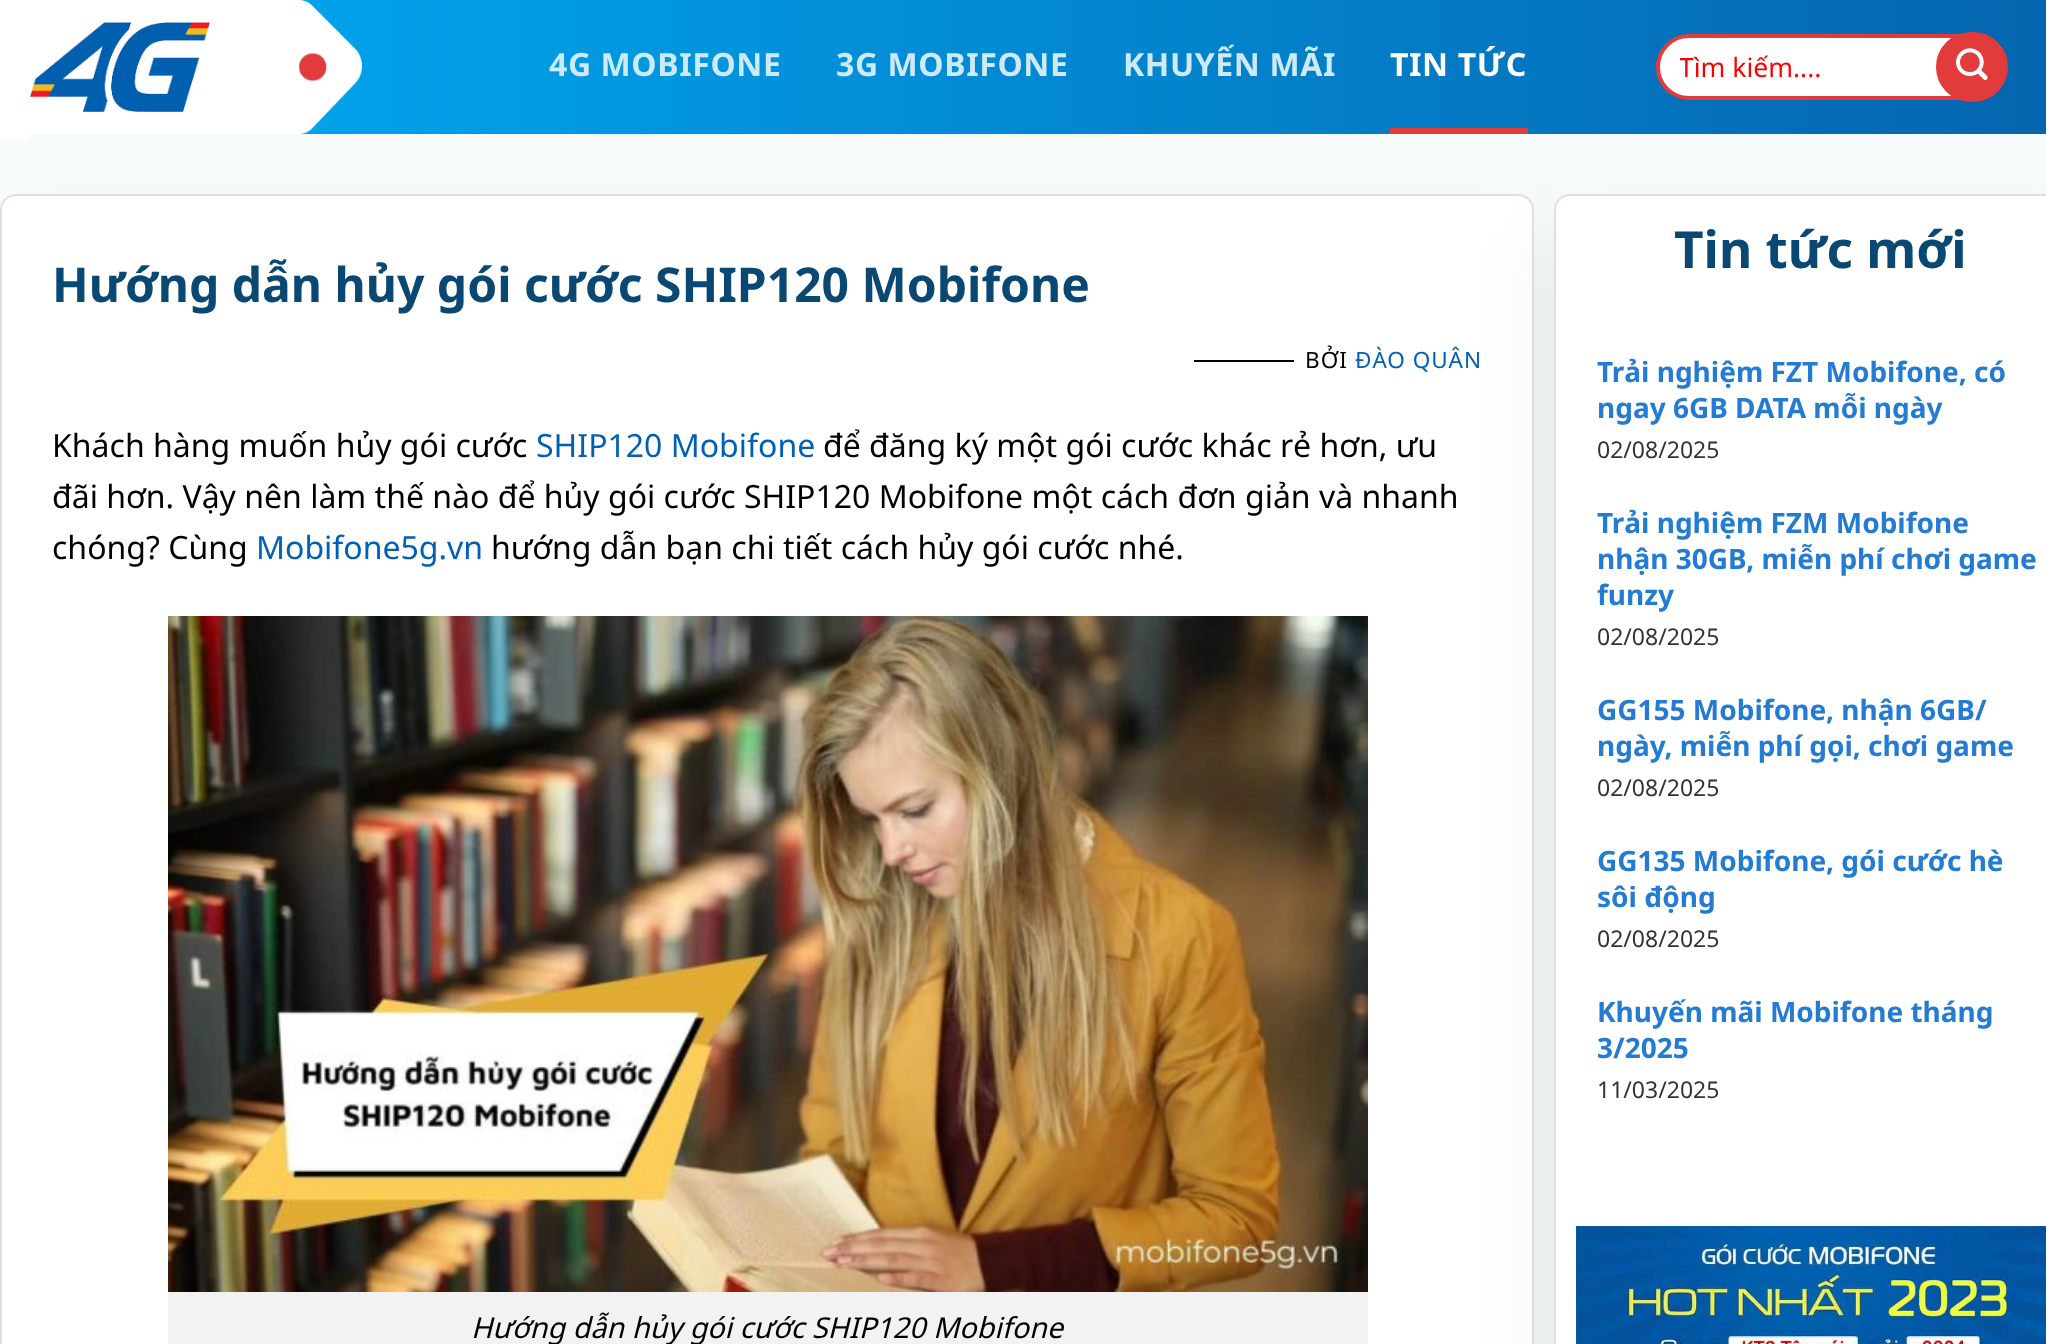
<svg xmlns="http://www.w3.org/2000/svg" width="2046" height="1344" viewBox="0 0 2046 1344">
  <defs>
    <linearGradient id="g1" gradientUnits="userSpaceOnUse" x1="0" y1="67" x2="2046" y2="67"><stop offset="0" stop-color="#00adf5"/><stop offset="1" stop-color="#0565af"/></linearGradient>
    <clipPath id="clip1"><path d="M1680 50h296v36H1680z"/></clipPath>
  </defs>
  <rect width="100%" height="100%" fill="#f8fbfc"/>
  <rect y="234" width="1534" height="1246" rx="16" fill="#0000000f" filter="blur(40px)"/>
  <rect x="1" y="195" width="1532" height="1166" rx="15" fill="#fff" stroke="#e0e0e0" stroke-width="2"/>
  <rect x="1554" y="234" width="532" height="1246" rx="16" fill="#0000000f" filter="blur(40px)"/>
  <path d="M299 0h1747v134H299z" fill="url(#g1)"/>
  <image x="30" y="0" width="332" height="134" href="img/1.png"/>
  <path d="M0 0h30v140H0z" fill="#fff"/>
  <image x="30" y="22" width="180" height="90" href="img/2.png"/>
  <path d="M1390 128h138v6H1390z" fill="#e13b3b"/>
  <rect x="1658" y="36" width="346" height="62" rx="31" fill="#fff" stroke="#e13b3b" stroke-width="4"/>
  <rect x="1938" y="34" width="68" height="66" rx="33" fill="#e13b3b" stroke="#e13b3b" stroke-width="4"/>
  <image x="1956" y="48" width="32" height="32" href="img/3.png"/>
  <path d="M1194 360h100v2H1194z" fill="#000"/>
  <image x="168" y="616" width="1200" height="676" href="img/4.png"/>
  <path d="M168 1292h1200v52H168z" fill="#f2f2f2"/>
  <rect x="1555" y="195" width="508" height="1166" rx="15" fill="#fff" stroke="#e0e0e0" stroke-width="2"/>
  <image x="1576" y="1226" width="470" height="118" href="img/5.png"/>
  <g font-family="Noto Sans" font-size="32" font-weight="bold" letter-spacing="0.6" fill="#cceaf8">
    <text x="549" y="76">4G MOBIFONE</text>
    <text x="836" y="76">3G MOBIFONE</text>
    <text x="1123" y="76">KHUYẾN MÃI</text>
  </g>
  <text x="1390" y="76" font-family="Noto Sans" font-size="32" font-weight="bold" letter-spacing="0.6" fill="#fff">TIN TỨC</text>
  <g clip-path="url(#clip1)">
    <text x="1679" y="77" font-family="Noto Sans" font-size="26.5" fill="#f00">Tìm kiếm....</text>
  </g>
  <text x="52" y="302" font-family="Noto Sans" font-size="48" font-weight="bold" fill="#0a4874">Hướng dẫn hủy gói cước SHIP120 Mobifone</text>
  <text x="1305" y="368" font-family="Noto Sans" font-size="22.5" letter-spacing="1" fill="#000">BỞI</text>
  <text x="1355" y="368" font-family="Noto Sans" font-size="22.5" letter-spacing="1" fill="#005fb6">ĐÀO QUÂN</text>
  <text x="52" y="457" font-family="Noto Sans" font-size="32" fill="#000">Khách hàng muốn hủy gói cước</text>
  <text x="536" y="457" font-family="Noto Sans" font-size="32" fill="#005fb6">SHIP120 Mobifone</text>
  <g font-family="Noto Sans" font-size="32" fill="#000">
    <text x="823" y="457">để đăng ký một gói cước khác rẻ hơn, ưu</text>
    <text x="52" y="508">đãi hơn. Vậy nên làm thế nào để hủy gói cước SHIP120 Mobifone một cách đơn giản và nhanh</text>
    <text x="52" y="559">chóng? Cùng</text>
  </g>
  <text x="256" y="559" font-family="Noto Sans" font-size="32" fill="#005fb6">Mobifone5g.vn</text>
  <text x="491" y="559" font-family="Noto Sans" font-size="32" fill="#000">hướng dẫn bạn chi tiết cách hủy gói cước nhé.</text>
  <text x="471" y="1338" font-family="Noto Sans" font-size="28.8" font-style="italic" fill="#000">Hướng dẫn hủy gói cước SHIP120 Mobifone</text>
  <text x="1674" y="268" font-family="Noto Sans" font-size="51.25" font-weight="bold" fill="#0a4874">Tin tức mới</text>
  <g font-family="Noto Sans" font-size="28" font-weight="bold" fill="#237bd3">
    <text x="1597" y="382">Trải nghiệm FZT Mobifone, có</text>
    <text x="1597" y="418">ngay 6GB DATA mỗi ngày</text>
  </g>
  <text x="1597" y="458" font-family="Noto Sans" font-size="23" fill="#333">02/08/2025</text>
  <g font-family="Noto Sans" font-size="28" font-weight="bold" fill="#237bd3">
    <text x="1597" y="533">Trải nghiệm FZM Mobifone</text>
    <text x="1597" y="569">nhận 30GB, miễn phí chơi game</text>
    <text x="1597" y="605">funzy</text>
  </g>
  <text x="1597" y="645" font-family="Noto Sans" font-size="23" fill="#333">02/08/2025</text>
  <g font-family="Noto Sans" font-size="28" font-weight="bold" fill="#237bd3">
    <text x="1597" y="720">GG155 Mobifone, nhận 6GB/</text>
    <text x="1597" y="756">ngày, miễn phí gọi, chơi game</text>
  </g>
  <text x="1597" y="796" font-family="Noto Sans" font-size="23" fill="#333">02/08/2025</text>
  <g font-family="Noto Sans" font-size="28" font-weight="bold" fill="#237bd3">
    <text x="1597" y="871">GG135 Mobifone, gói cước hè</text>
    <text x="1597" y="907">sôi động</text>
  </g>
  <text x="1597" y="947" font-family="Noto Sans" font-size="23" fill="#333">02/08/2025</text>
  <g font-family="Noto Sans" font-size="28" font-weight="bold" fill="#237bd3">
    <text x="1597" y="1022">Khuyến mãi Mobifone tháng</text>
    <text x="1597" y="1058">3/2025</text>
  </g>
  <text x="1597" y="1098" font-family="Noto Sans" font-size="23" fill="#333">11/03/2025</text>
</svg>
